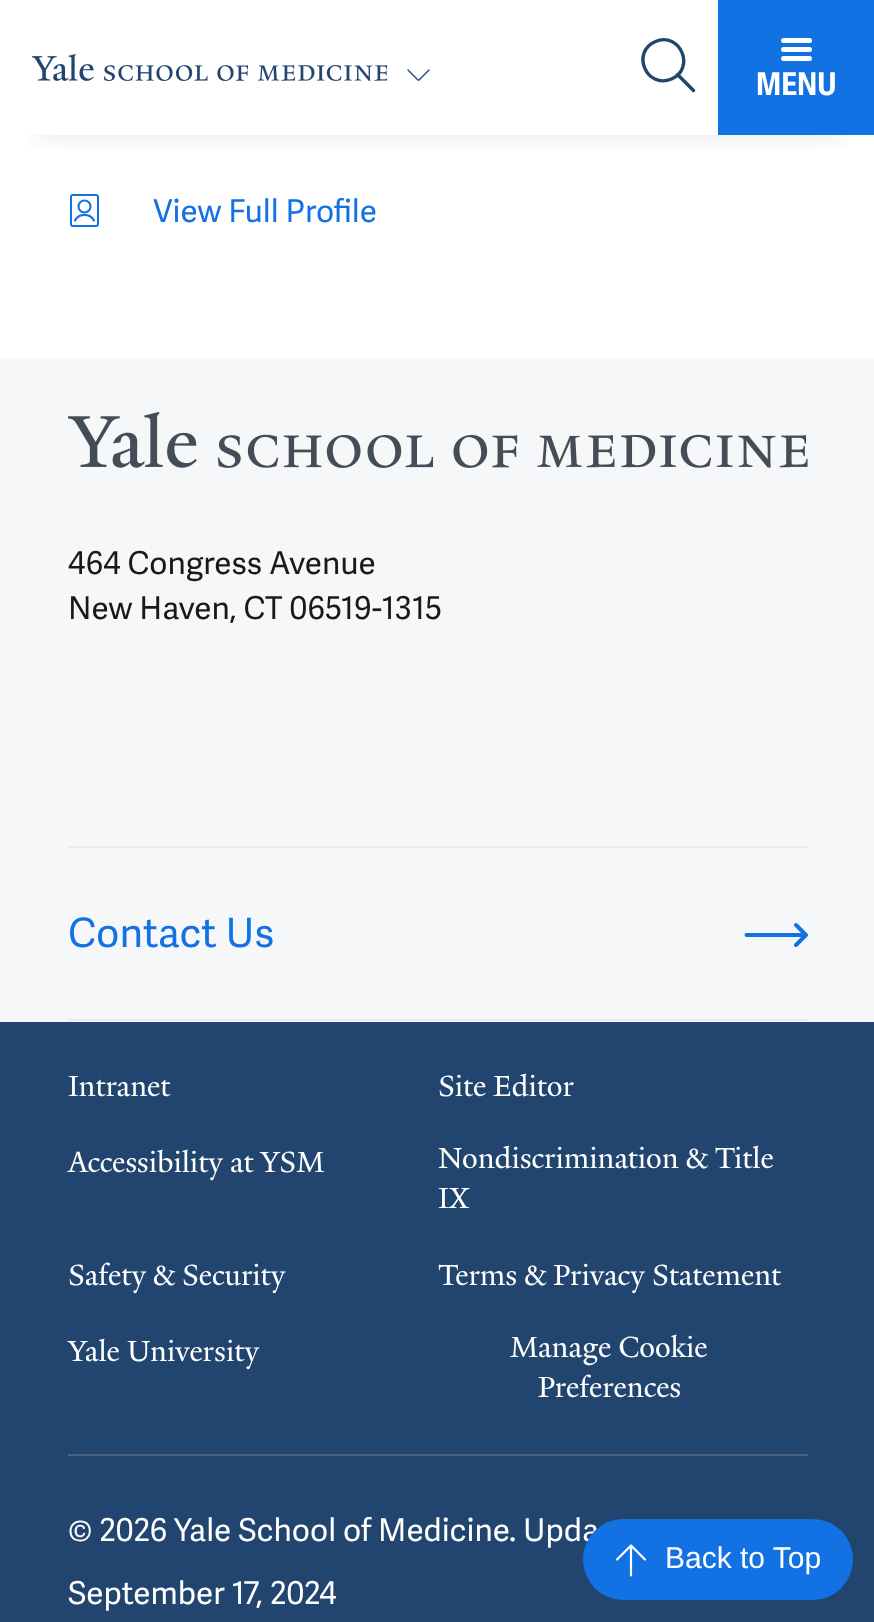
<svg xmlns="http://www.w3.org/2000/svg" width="874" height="1622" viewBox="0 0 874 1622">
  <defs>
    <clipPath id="clip1"><path d="M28 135h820v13H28z"/></clipPath>
  </defs>
  <rect width="100%" height="100%" fill="#fff"/>
  <g clip-path="url(#clip1)">
    <path d="M32 63h812v72H32z" fill="#1919191a" filter="blur(16px)"/>
  </g>
  <image x="32" y="54" width="355" height="27" href="img/1.png"/>
  <path d="M429 70L419 80C418.5 80 418.5 80 418 80L408 70" fill="none" stroke="#224570" stroke-width="1.4" stroke-linecap="round" stroke-linejoin="round"/>
  <path d="M655.5 41.5C680 31 696 68.5 671.5 79C646.5 89.5 630.5 52 655.5 41.5ZM677.5 74.5L693.5 90.5" fill="none" stroke="#224570" stroke-width="3.4" stroke-linecap="round" stroke-linejoin="round"/>
  <path d="M718 0h156v135H718z" fill="#1271e3"/>
  <rect x="781" y="38" width="31" height="5" rx="2.5" fill="#fff"/>
  <rect x="781" y="47" width="31" height="5" rx="2.5" fill="#fff"/>
  <rect x="781" y="56" width="31" height="5" rx="2.5" fill="#fff"/>
  <rect x="71" y="195" width="27" height="31" rx="2" fill="none" stroke="#1271e3" stroke-width="2"/>
  <circle cx="84.5" cy="206.5" r="6" fill="none" stroke="#1271e3" stroke-width="2.1"/>
  <path d="M94 220.5C90 213 79 213 75 220.5" fill="none" stroke="#1271e3" stroke-width="2.1" stroke-linecap="round" stroke-linejoin="round"/>
  <path d="M0 358h874v664H0z" fill="#f6f7f9"/>
  <image x="68" y="412" width="740" height="56" href="img/2.png"/>
  <path d="M68 846h740v2H68z" fill="#ebedf0"/>
  <path d="M68 1019h740v2H68z" fill="#ebedf0"/>
  <path d="M806 935H746.5M796 945L806 935L796 925" fill="none" stroke="#1271e3" stroke-width="3.9" stroke-linecap="round" stroke-linejoin="round"/>
  <path d="M0 1022h874v600H0z" fill="#224570"/>
  <path d="M68 1454h740v2H68z" fill="#4b617c"/>
  <text x="756" y="95" font-family="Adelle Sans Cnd" font-size="31.5" font-weight="bold" fill="#fff">MENU</text>
  <text x="153" y="222" font-family="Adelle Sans" font-size="31.5" fill="#1271e3">View Full Profile</text>
  <g font-family="Adelle Sans" font-size="31.5" fill="#191919">
    <text x="68" y="574">464 Congress Avenue</text>
    <text x="68" y="619">New Haven, CT 06519-1315</text>
  </g>
  <text x="68" y="947" font-family="Adelle Sans" font-size="40.5" fill="#1271e3">Contact Us</text>
  <g font-family="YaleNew" font-size="31.5" fill="#fff">
    <text x="68" y="1096">Intranet</text>
    <text x="438" y="1096">Site Editor</text>
    <text x="68" y="1172">Accessibility at YSM</text>
    <text x="438" y="1168">Nondiscrimination &amp; Title</text>
    <text x="438" y="1208">IX</text>
    <text x="68" y="1285">Safety &amp; Security</text>
    <text x="438" y="1285">Terms &amp; Privacy Statement</text>
    <text x="68" y="1361">Yale University</text>
    <text x="510" y="1357">Manage Cookie</text>
    <text x="538" y="1397">Preferences</text>
  </g>
  <g font-family="Adelle Sans" font-size="31.5" fill="#fff">
    <text x="68" y="1541">© 2026</text>
    <text x="174" y="1541">Yale School of Medicine</text>
    <text x="509" y="1541">. Upda</text>
    <text x="68" y="1604">September 17, 2024</text>
  </g>
  <rect x="583" y="1519" width="270" height="81" rx="40.5" fill="#1271e3"/>
  <path d="M631 1575.5V1545.5M645 1559.5L631 1545.5L617 1559.5" fill="none" stroke="#fff" stroke-width="2.2" stroke-linecap="round" stroke-linejoin="round"/>
  <text x="665" y="1568" font-family="Liberation Sans" font-size="30" fill="#fff">Back to Top</text>
</svg>
